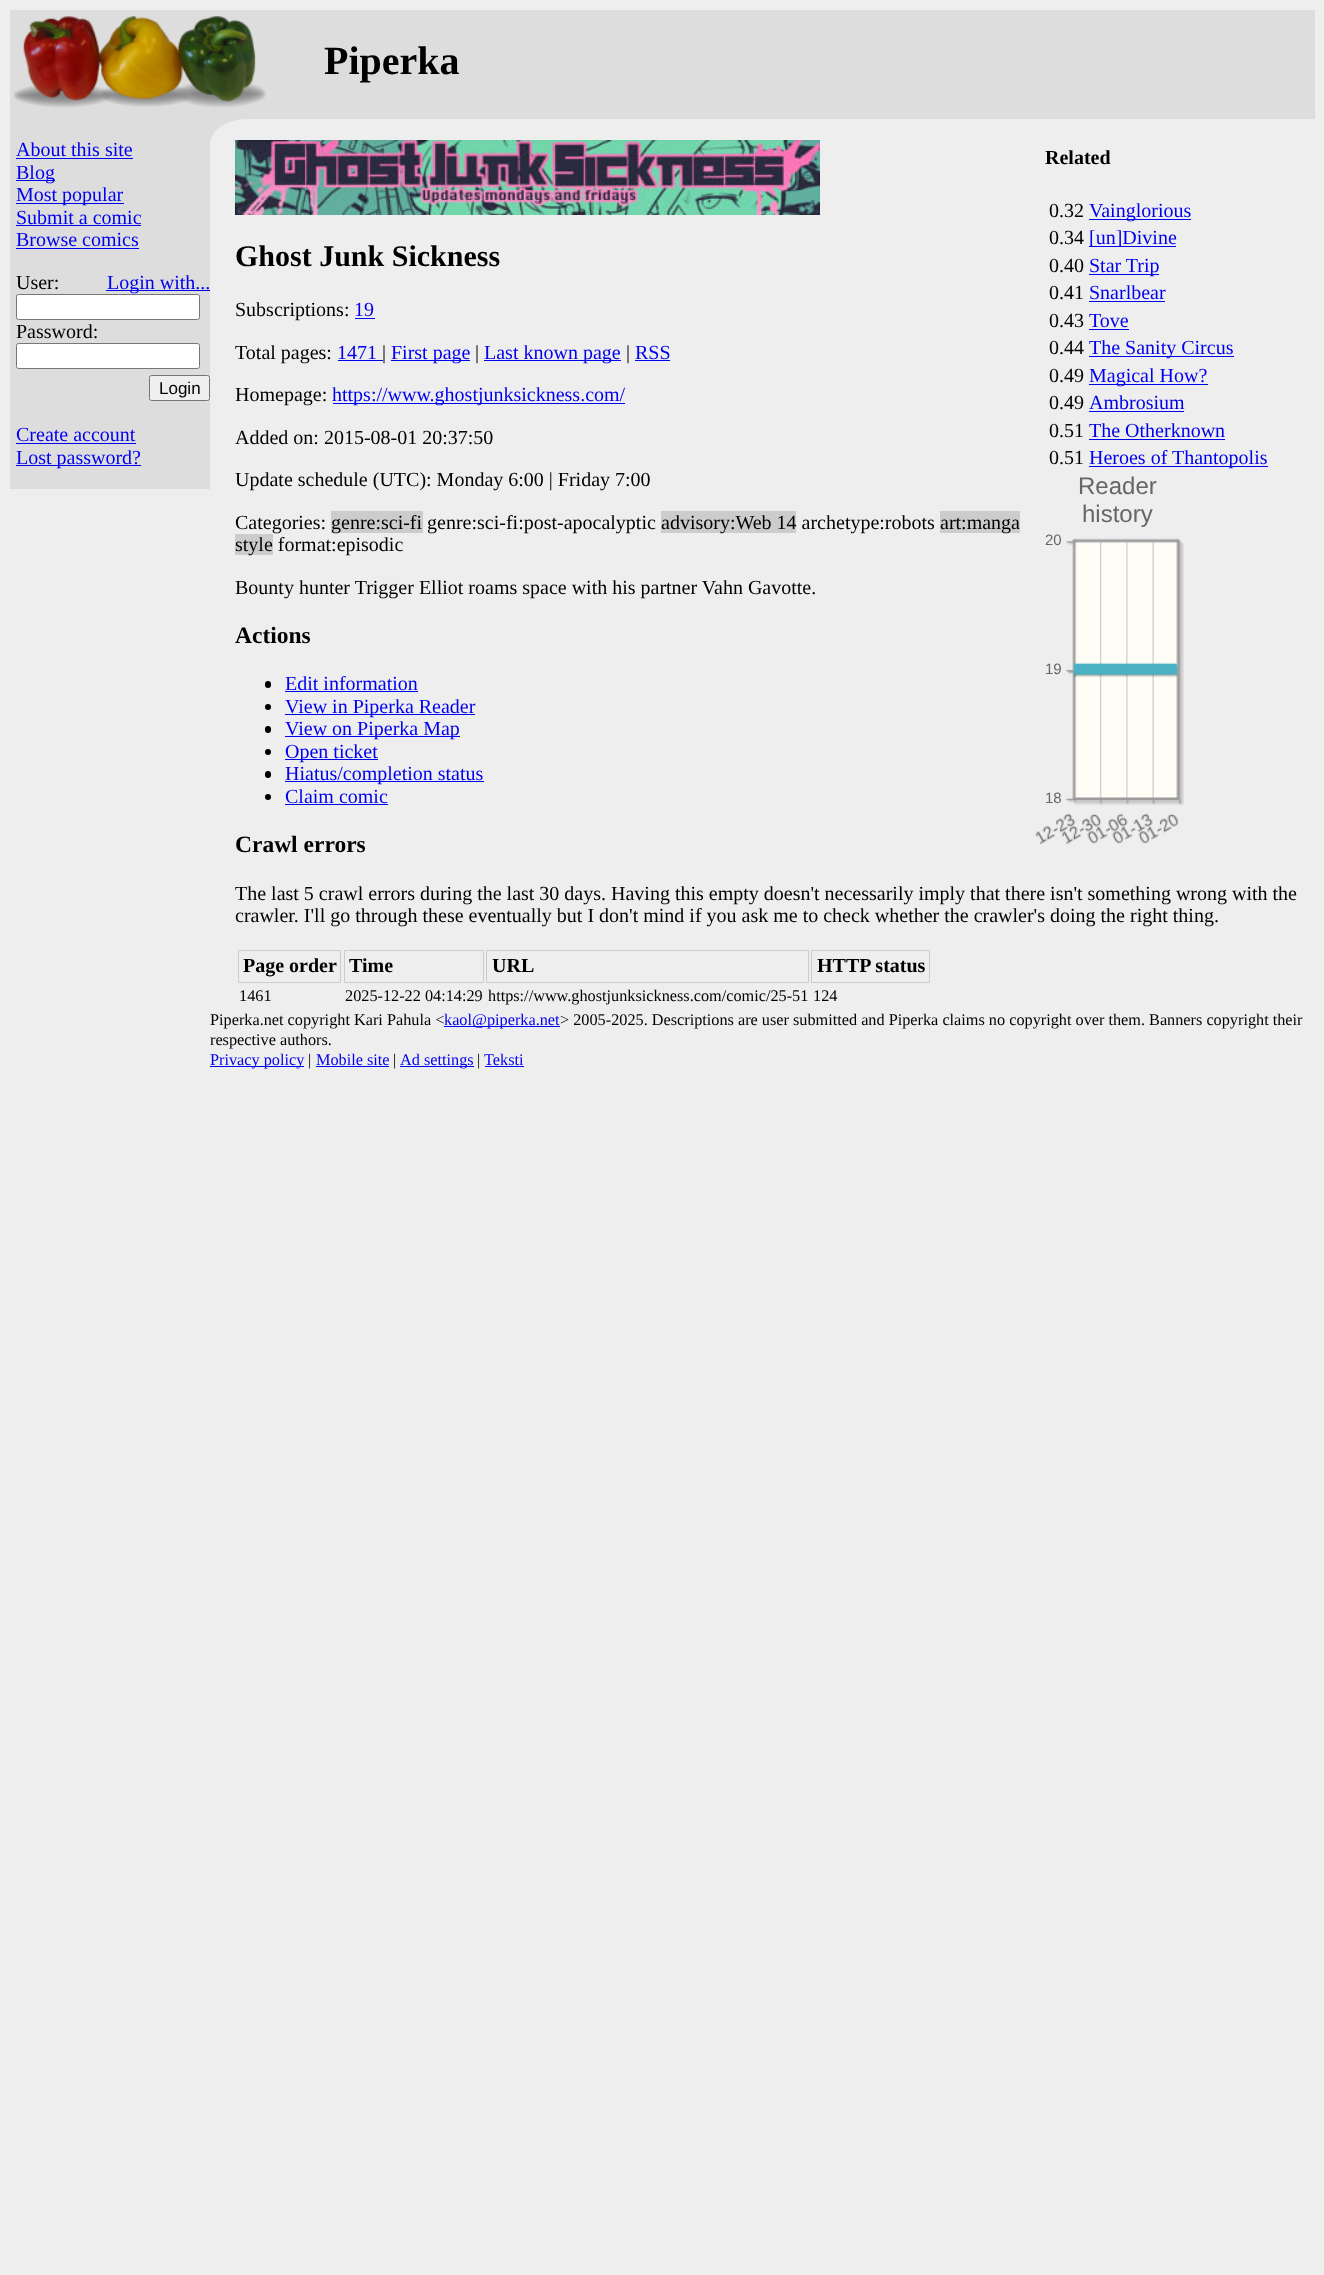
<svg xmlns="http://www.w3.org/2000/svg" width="1324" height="2275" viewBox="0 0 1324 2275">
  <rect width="100%" height="100%" fill="#eee"/>
  <path d="M10 10h1305v109H10z" fill="#ddd"/>
  <image x="13" y="16" width="253" height="92" href="img/1.png"/>
  <path d="M210 119h37v25H210z" fill="#ddd"/>
  <path d="M10 119h200v370H10z" fill="#ddd"/>
  <path d="M16 158h117v1H16z" fill="#00e"/>
  <path d="M16 180h39v1H16z" fill="#00e"/>
  <path d="M16 203h108v1H16z" fill="#00e"/>
  <path d="M16 225h125v1H16z" fill="#00e"/>
  <path d="M16 248h123v1H16z" fill="#00e"/>
  <path d="M106 290h104v1H106z" fill="#00e"/>
  <rect x="16.5" y="294.5" width="183" height="25" rx="2" fill="#fff" stroke="#767676"/>
  <rect x="16.5" y="343.5" width="183" height="25" rx="2" fill="#fff" stroke="#767676"/>
  <rect x="149.5" y="375.5" width="60" height="25" rx="2" fill="#efefef" stroke="#767676"/>
  <path d="M16 443h120v1H16z" fill="#00e"/>
  <path d="M16 465h125v1H16z" fill="#00e"/>
  <path d="M248 119H1315V1010H210V144C210 130 227 119 248 119Z" fill="#eee"/>
  <image x="235" y="140" width="585" height="75" href="img/2.png"/>
  <path d="M1089 219h102v1H1089z" fill="#00e"/>
  <path d="M1089 246h87v1H1089z" fill="#00e"/>
  <path d="M1089 274h70v1H1089z" fill="#00e"/>
  <path d="M1089 301h76v1H1089z" fill="#00e"/>
  <path d="M1089 329h40v1H1089z" fill="#00e"/>
  <path d="M1089 356h145v1H1089z" fill="#00e"/>
  <path d="M1089 384h119v1H1089z" fill="#00e"/>
  <path d="M1089 411h95v1H1089z" fill="#00e"/>
  <path d="M1089 439h136v1H1089z" fill="#00e"/>
  <path d="M1089 466h179v1H1089z" fill="#00e"/>
  <path d="M355 318h20v1H355z" fill="#00e"/>
  <path d="M338 360h45v1H338z" fill="#00e"/>
  <path d="M391 360h79v1H391z" fill="#00e"/>
  <path d="M484 360h137v1H484z" fill="#00e"/>
  <path d="M635 360h35v1H635z" fill="#00e"/>
  <path d="M333 403h292v1H333z" fill="#00e"/>
  <image x="1066" y="538" width="118" height="267" href="img/3.png"/>
  <image x="1073" y="662" width="105" height="16" href="img/4.png"/>
  <image x="1035" y="813" width="41" height="31" href="img/5.png"/>
  <image x="1061" y="813" width="41" height="31" href="img/6.png"/>
  <image x="1087" y="813" width="41" height="31" href="img/7.png"/>
  <image x="1112" y="813" width="41" height="31" href="img/8.png"/>
  <image x="1138" y="813" width="41" height="31" href="img/9.png"/>
  <path d="M331 511h92v22H331z" fill="#ccc"/>
  <path d="M661 511h135v22H661z" fill="#ccc"/>
  <path d="M940 511h80v22H940z" fill="#ccc"/>
  <path d="M235 534h38v21H235z" fill="#ccc"/>
  <rect x="265" y="681" width="6" height="7" rx="3" fill="#000"/>
  <path d="M285 691h133v1H285z" fill="#00e"/>
  <circle cx="268" cy="707" r="3" fill="#000"/>
  <path d="M285 714h190v1H285z" fill="#00e"/>
  <rect x="265" y="726" width="6" height="7" rx="3" fill="#000"/>
  <path d="M285 736h175v1H285z" fill="#00e"/>
  <circle cx="268" cy="752" r="3" fill="#000"/>
  <path d="M285 759h93v1H285z" fill="#00e"/>
  <rect x="265" y="771" width="6" height="7" rx="3" fill="#000"/>
  <path d="M285 781h199v1H285z" fill="#00e"/>
  <circle cx="268" cy="797" r="3" fill="#000"/>
  <path d="M285 804h103v1H285z" fill="#00e"/>
  <path d="M238.5 950.5h102v32H238.5z" fill="none" stroke="#ccc"/>
  <path d="M344.5 950.5h139v32H344.5z" fill="none" stroke="#ccc"/>
  <path d="M486.5 950.5h322v32H486.5z" fill="none" stroke="#ccc"/>
  <path d="M811.5 950.5h118v32H811.5z" fill="none" stroke="#ccc"/>
  <path d="M444 1026h116v1H444z" fill="#00e"/>
  <path d="M210 1066h94v1H210z" fill="#00e"/>
  <path d="M316 1066h73v1H316z" fill="#00e"/>
  <path d="M400 1066h74v1H400z" fill="#00e"/>
  <path d="M485 1066h39v1H485z" fill="#00e"/>
  <text x="324" y="74" font-family="Liberation Serif" font-size="40" font-weight="bold" fill="#000">Piperka</text>
  <g font-family="Liberation Serif" font-size="20" fill="#00e">
    <text x="16" y="156">About this site</text>
    <text x="16" y="179">Blog</text>
    <text x="16" y="201">Most popular</text>
    <text x="16" y="224">Submit a comic</text>
    <text x="16" y="246">Browse comics</text>
  </g>
  <text x="16" y="289" font-family="Liberation Serif" font-size="20" fill="#000">User:</text>
  <text x="107" y="289" font-family="Liberation Serif" font-size="20" fill="#00e">Login with...</text>
  <text x="16" y="338" font-family="Liberation Serif" font-size="20" fill="#000">Password:</text>
  <text x="159" y="394" font-family="Liberation Sans" font-size="17" fill="#000">Login</text>
  <g font-family="Liberation Serif" font-size="20" fill="#00e">
    <text x="16" y="441">Create account</text>
    <text x="16" y="464">Lost password?</text>
  </g>
  <text x="1045" y="164" font-family="Liberation Serif" font-size="20" font-weight="bold" fill="#000">Related</text>
  <text x="1049" y="217" font-family="Liberation Serif" font-size="20" fill="#000">0.32</text>
  <text x="1089" y="217" font-family="Liberation Serif" font-size="20" fill="#00e">Vainglorious</text>
  <text x="1049" y="244" font-family="Liberation Serif" font-size="20" fill="#000">0.34</text>
  <text x="1089" y="244" font-family="Liberation Serif" font-size="20" fill="#00e">[un]Divine</text>
  <text x="1049" y="272" font-family="Liberation Serif" font-size="20" fill="#000">0.40</text>
  <text x="1089" y="272" font-family="Liberation Serif" font-size="20" fill="#00e">Star Trip</text>
  <text x="1049" y="299" font-family="Liberation Serif" font-size="20" fill="#000">0.41</text>
  <text x="1089" y="299" font-family="Liberation Serif" font-size="20" fill="#00e">Snarlbear</text>
  <text x="1049" y="327" font-family="Liberation Serif" font-size="20" fill="#000">0.43</text>
  <text x="1089" y="327" font-family="Liberation Serif" font-size="20" fill="#00e">Tove</text>
  <text x="1049" y="354" font-family="Liberation Serif" font-size="20" fill="#000">0.44</text>
  <text x="1089" y="354" font-family="Liberation Serif" font-size="20" fill="#00e">The Sanity Circus</text>
  <text x="1049" y="382" font-family="Liberation Serif" font-size="20" fill="#000">0.49</text>
  <text x="1089" y="382" font-family="Liberation Serif" font-size="20" fill="#00e">Magical How?</text>
  <text x="1049" y="409" font-family="Liberation Serif" font-size="20" fill="#000">0.49</text>
  <text x="1089" y="409" font-family="Liberation Serif" font-size="20" fill="#00e">Ambrosium</text>
  <text x="1049" y="437" font-family="Liberation Serif" font-size="20" fill="#000">0.51</text>
  <text x="1089" y="437" font-family="Liberation Serif" font-size="20" fill="#00e">The Otherknown</text>
  <text x="1049" y="464" font-family="Liberation Serif" font-size="20" fill="#000">0.51</text>
  <text x="1089" y="464" font-family="Liberation Serif" font-size="20" fill="#00e">Heroes of Thantopolis</text>
  <text x="235" y="266" font-family="Liberation Serif" font-size="30" font-weight="bold" fill="#000">Ghost Junk Sickness</text>
  <text x="235" y="316" font-family="Liberation Serif" font-size="20" fill="#000">Subscriptions:</text>
  <text x="354" y="316" font-family="Liberation Serif" font-size="20" fill="#00e">19</text>
  <text x="235" y="359" font-family="Liberation Serif" font-size="20" fill="#000">Total pages:</text>
  <text x="337" y="359" font-family="Liberation Serif" font-size="20" fill="#00e">1471</text>
  <text x="382" y="359" font-family="Liberation Serif" font-size="20" fill="#000">|</text>
  <text x="391" y="359" font-family="Liberation Serif" font-size="20" fill="#00e">First page</text>
  <text x="475" y="359" font-family="Liberation Serif" font-size="20" fill="#000">|</text>
  <text x="484" y="359" font-family="Liberation Serif" font-size="20" fill="#00e">Last known page</text>
  <text x="626" y="359" font-family="Liberation Serif" font-size="20" fill="#000">|</text>
  <text x="635" y="359" font-family="Liberation Serif" font-size="20" fill="#00e">RSS</text>
  <text x="235" y="401" font-family="Liberation Serif" font-size="20" fill="#000">Homepage:</text>
  <text x="332" y="401" font-family="Liberation Serif" font-size="20" fill="#00e">https://www.ghostjunksickness.com/</text>
  <g font-family="Liberation Serif" font-size="20" fill="#000">
    <text x="235" y="444">Added on: 2015-08-01 20:37:50</text>
    <text x="235" y="486">Update schedule (UTC): Monday 6:00 | Friday 7:00</text>
  </g>
  <g font-family="Liberation Sans" font-size="24" fill="#666">
    <text x="1078" y="494">Reader</text>
    <text x="1082" y="522">history</text>
  </g>
  <g font-family="Liberation Sans" font-size="15" fill="#666">
    <text x="1045" y="545">20</text>
    <text x="1045" y="674">19</text>
    <text x="1045" y="803">18</text>
  </g>
  <g font-family="Liberation Serif" font-size="20" fill="#000">
    <text x="235" y="529">Categories:</text>
    <text x="331" y="529">genre:sci-fi genre:sci-fi:post-apocalyptic</text>
    <text x="661" y="529">advisory:Web 14 archetype:robots</text>
    <text x="940" y="529">art:manga</text>
    <text x="235" y="551">style format:episodic</text>
    <text x="235" y="594">Bounty hunter Trigger Elliot roams space with his partner Vahn Gavotte.</text>
  </g>
  <text x="235" y="643" font-family="Liberation Serif" font-size="23.5" font-weight="bold" fill="#000">Actions</text>
  <g font-family="Liberation Serif" font-size="20" fill="#00e">
    <text x="285" y="690">Edit information</text>
    <text x="285" y="713">View in Piperka Reader</text>
    <text x="285" y="735">View on Piperka Map</text>
    <text x="285" y="758">Open ticket</text>
    <text x="285" y="780">Hiatus/completion status</text>
    <text x="285" y="803">Claim comic</text>
  </g>
  <text x="235" y="852" font-family="Liberation Serif" font-size="23.5" font-weight="bold" fill="#000">Crawl errors</text>
  <g font-family="Liberation Serif" font-size="20" fill="#000">
    <text x="235" y="900">The last 5 crawl errors during the last 30 days. Having this empty doesn't necessarily imply that there isn't something wrong with the</text>
    <text x="235" y="922">crawler. I'll go through these eventually but I don't mind if you ask me to check whether the crawler's doing the right thing.</text>
  </g>
  <g font-family="Liberation Serif" font-size="20" font-weight="bold" fill="#000">
    <text x="243" y="972">Page order</text>
    <text x="349" y="972">Time</text>
    <text x="492" y="972">URL</text>
    <text x="817" y="972">HTTP status</text>
  </g>
  <g font-family="Liberation Serif" font-size="16.25" fill="#000">
    <text x="239" y="1001">1461</text>
    <text x="345" y="1001">2025-12-22 04:14:29</text>
    <text x="488" y="1001">https://www.ghostjunksickness.com/comic/25-51</text>
    <text x="813" y="1001">124</text>
    <text x="210" y="1025">Piperka.net copyright Kari Pahula &lt;</text>
  </g>
  <text x="444" y="1025" font-family="Liberation Serif" font-size="16.25" fill="#00e">kaol@piperka.net</text>
  <g font-family="Liberation Serif" font-size="16.25" fill="#000">
    <text x="560" y="1025">&gt; 2005-2025. Descriptions are user submitted and Piperka claims no copyright over them. Banners copyright their</text>
    <text x="210" y="1045">respective authors.</text>
  </g>
  <text x="210" y="1065" font-family="Liberation Serif" font-size="16.25" fill="#00e">Privacy policy</text>
  <text x="308" y="1065" font-family="Liberation Serif" font-size="16.25" fill="#000">|</text>
  <text x="316" y="1065" font-family="Liberation Serif" font-size="16.25" fill="#00e">Mobile site</text>
  <text x="393" y="1065" font-family="Liberation Serif" font-size="16.25" fill="#000">|</text>
  <text x="400" y="1065" font-family="Liberation Serif" font-size="16.25" fill="#00e">Ad settings</text>
  <text x="477" y="1065" font-family="Liberation Serif" font-size="16.25" fill="#000">|</text>
  <text x="484" y="1065" font-family="Liberation Serif" font-size="16.25" fill="#00e">Teksti</text>
</svg>
